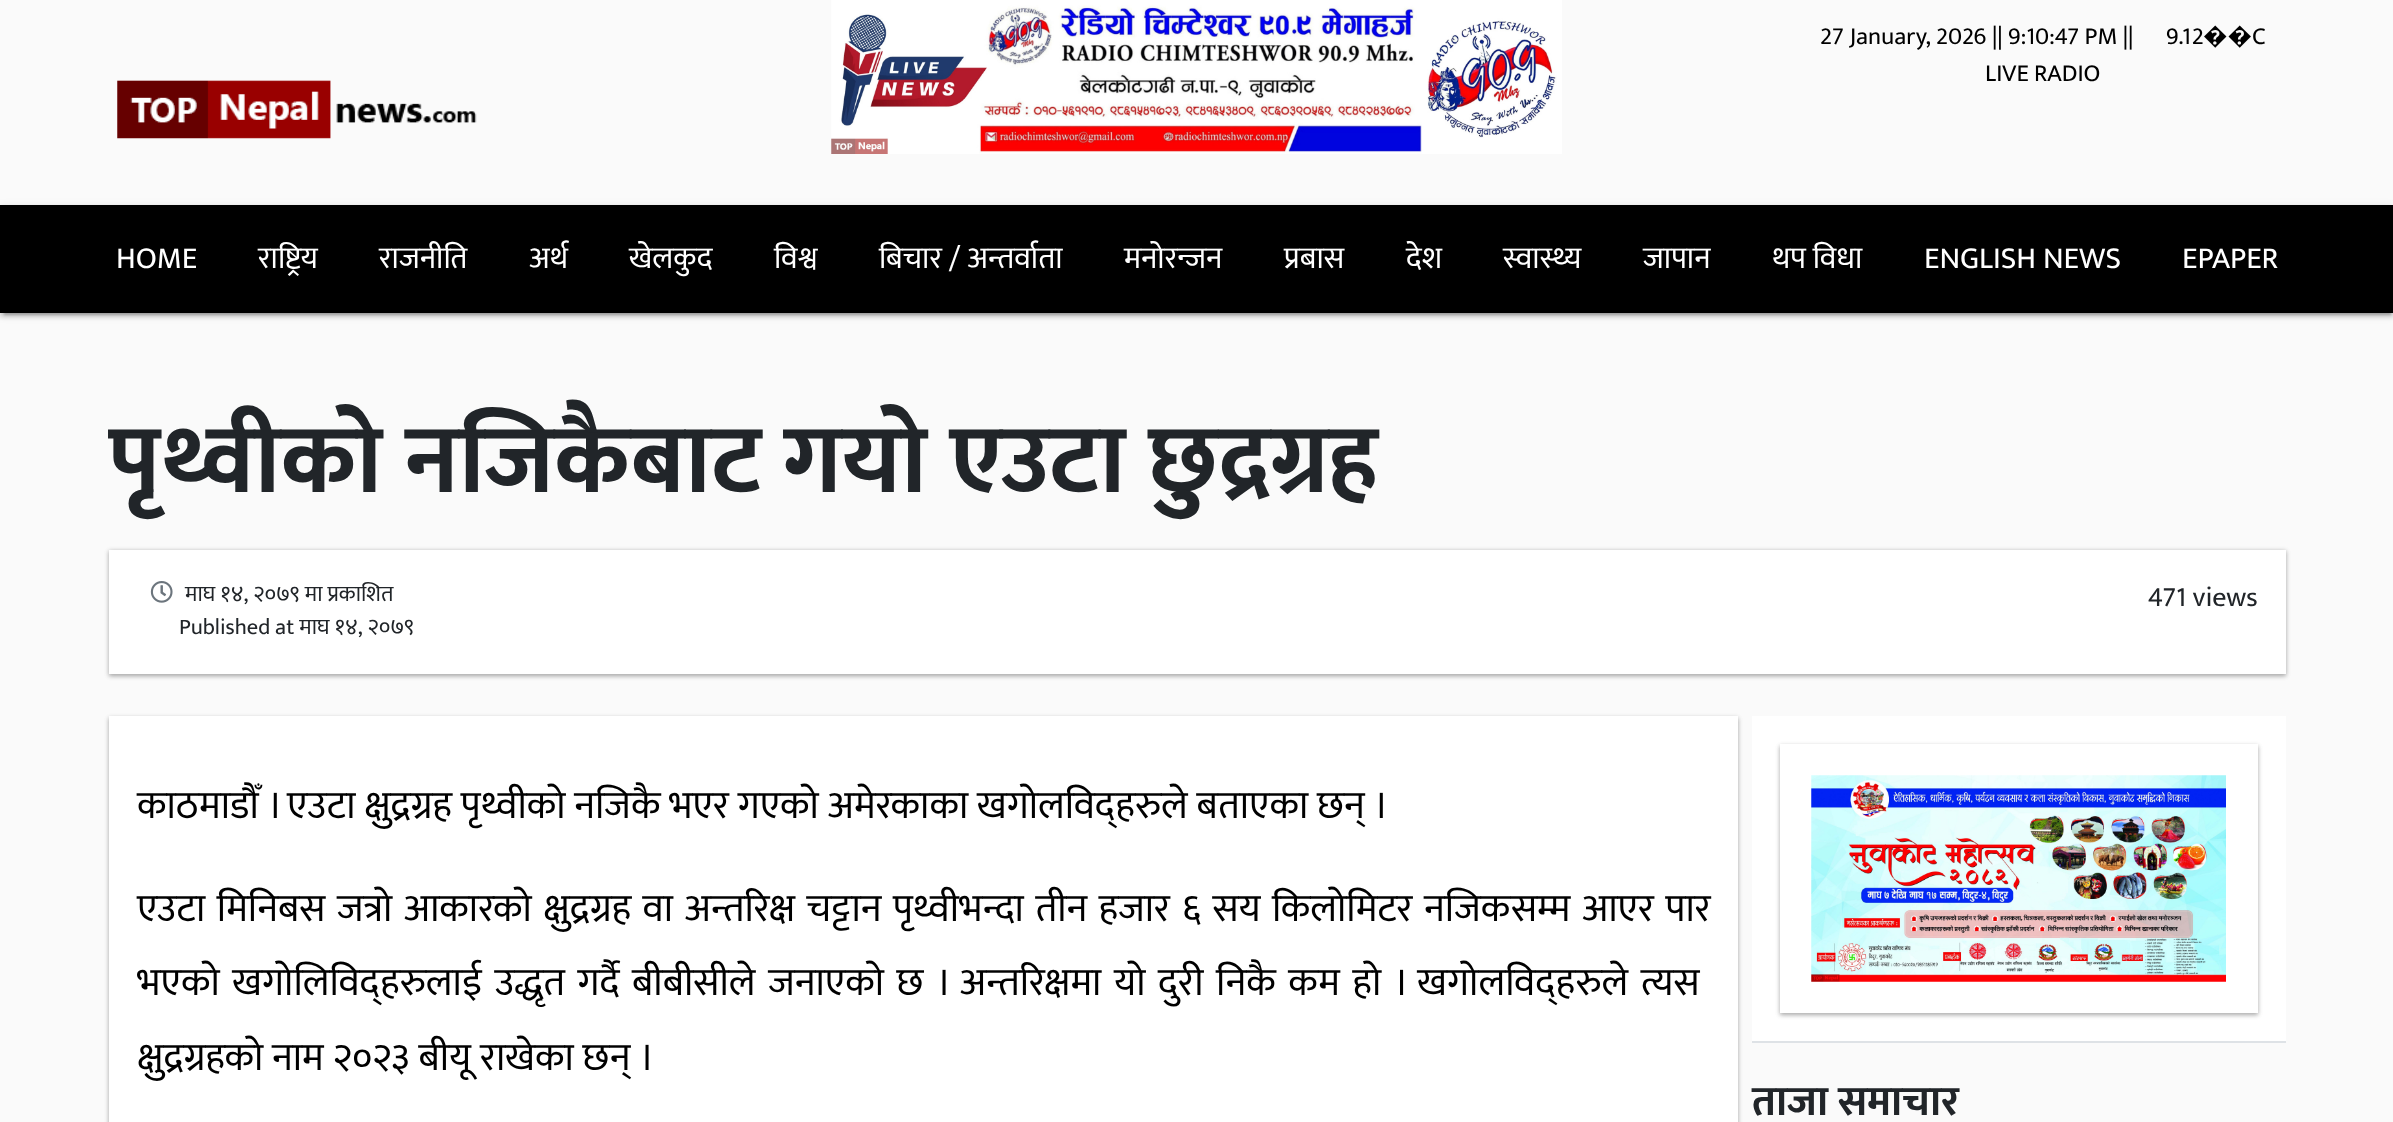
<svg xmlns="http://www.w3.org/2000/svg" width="2393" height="1122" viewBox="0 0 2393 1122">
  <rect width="100%" height="100%" fill="#fafafa"/>
  <image x="831" y="0" width="731" height="154" href="img/1.png"/>
  <image x="117" y="80" width="360" height="59" href="img/2.png"/>
  <path d="M0 207h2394v108H0z" fill="#0000001f" filter="blur(4.5px)"/>
  <path d="M4 214h2387v101H4z" fill="#00000033" filter="blur(1px)"/>
  <path d="M0 208h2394v109H0z" fill="#00000024" filter="blur(2px)"/>
  <path d="M0 205h2393v108H0z" fill="#000"/>
  <path d="M109 551h2177v125H109z" fill="#0000003d" filter="blur(2px)"/>
  <path d="M109 551h2177v125H109z" fill="#0000001f" filter="blur(2.5px)"/>
  <path d="M109 550h2177v124H109z" fill="#fff"/>
  <image x="150" y="581" width="23" height="22" href="img/3.png"/>
  <path d="M109 718h1629v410H109z" fill="#0000003d" filter="blur(2px)"/>
  <path d="M109 718h1629v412H109z" fill="#0000001f" filter="blur(2.5px)"/>
  <path d="M109 716h1629v406H109z" fill="#fff"/>
  <path d="M1752 716h534v325H1752z" fill="#fff"/>
  <path d="M1752 1041h534v2H1752z" fill="#dee2e6"/>
  <path d="M1780 746h478v269H1780z" fill="#0000003d" filter="blur(2px)"/>
  <path d="M1780 746h478v269H1780z" fill="#0000001f" filter="blur(2.5px)"/>
  <path d="M1780 744h478v269H1780z" fill="#fff"/>
  <image x="1811" y="775" width="415" height="207" href="img/4.png"/>
  <g font-family="Mukta" font-size="24.5" fill="#000">
    <text x="1820" y="44">27 January, 2026 || 9:10:47 PM ||</text>
    <text x="2166" y="44">9.12</text>
  </g>
  <text x="2203" y="44" font-family="Noto Sans" font-size="24.5" fill="#000">��</text>
  <g font-family="Mukta" font-size="24.5" fill="#000">
    <text x="2252" y="44">C</text>
    <text x="1985" y="81">LIVE RADIO</text>
  </g>
  <g font-family="Mukta" font-size="30.75" fill="#fff">
    <text x="116" y="268">HOME</text>
    <text x="258" y="268">राष्ट्रिय</text>
    <text x="379" y="268">राजनीति</text>
    <text x="529" y="268">अर्थ</text>
    <text x="629" y="268">खेलकुद</text>
    <text x="774" y="268">विश्व</text>
    <text x="879" y="268">बिचार / अन्तर्वाता</text>
    <text x="1124" y="268">मनोरन्जन</text>
    <text x="1284" y="268">प्रबास</text>
    <text x="1406" y="268">देश</text>
    <text x="1503" y="268">स्वास्थ्य</text>
    <text x="1643" y="268">जापान</text>
    <text x="1772" y="268">थप विधा</text>
    <text x="1924" y="268">ENGLISH NEWS</text>
    <text x="2182" y="268">EPAPER</text>
  </g>
  <text x="109" y="492" font-family="Mukta" font-size="98" font-weight="bold" fill="#212529">पृथ्वीको नजिकैबाट गयो एउटा छुद्रग्रह</text>
  <g font-family="Mukta" font-size="22.4" fill="#212529">
    <text x="185" y="601">माघ १४, २०७९ मा प्रकाशित</text>
    <text x="179" y="634">Published at माघ १४, २०७९</text>
  </g>
  <text x="2148" y="606" font-family="Mukta" font-size="28" fill="#212529">471 views</text>
  <g font-family="Mukta" font-size="39.2" fill="#000">
    <text x="137" y="818">काठमाडौँ । एउटा क्षुद्रग्रह पृथ्वीको नजिकै भएर गएको अमेरकाका खगोलविद्हरुले बताएका छन् ।</text>
    <text x="137" y="921" word-spacing="2.75">एउटा मिनिबस जत्रो आकारको क्षुद्रग्रह वा अन्तरिक्ष चट्टान पृथ्वीभन्दा तीन हजार ६ सय किलोमिटर नजिकसम्म आएर पार</text>
    <text x="137" y="995" word-spacing="3.9">भएको खगोलिविद्हरुलाई उद्धृत गर्दै बीबीसीले जनाएको छ । अन्तरिक्षमा यो दुरी निकै कम हो । खगोलविद्हरुले त्यस</text>
    <text x="137" y="1070">क्षुद्रग्रहको नाम २०२३ बीयू राखेका छन् ।</text>
  </g>
  <text x="1752" y="1115" font-family="Mukta" font-size="42" font-weight="bold" fill="#212529">ताजा समाचार</text>
</svg>
